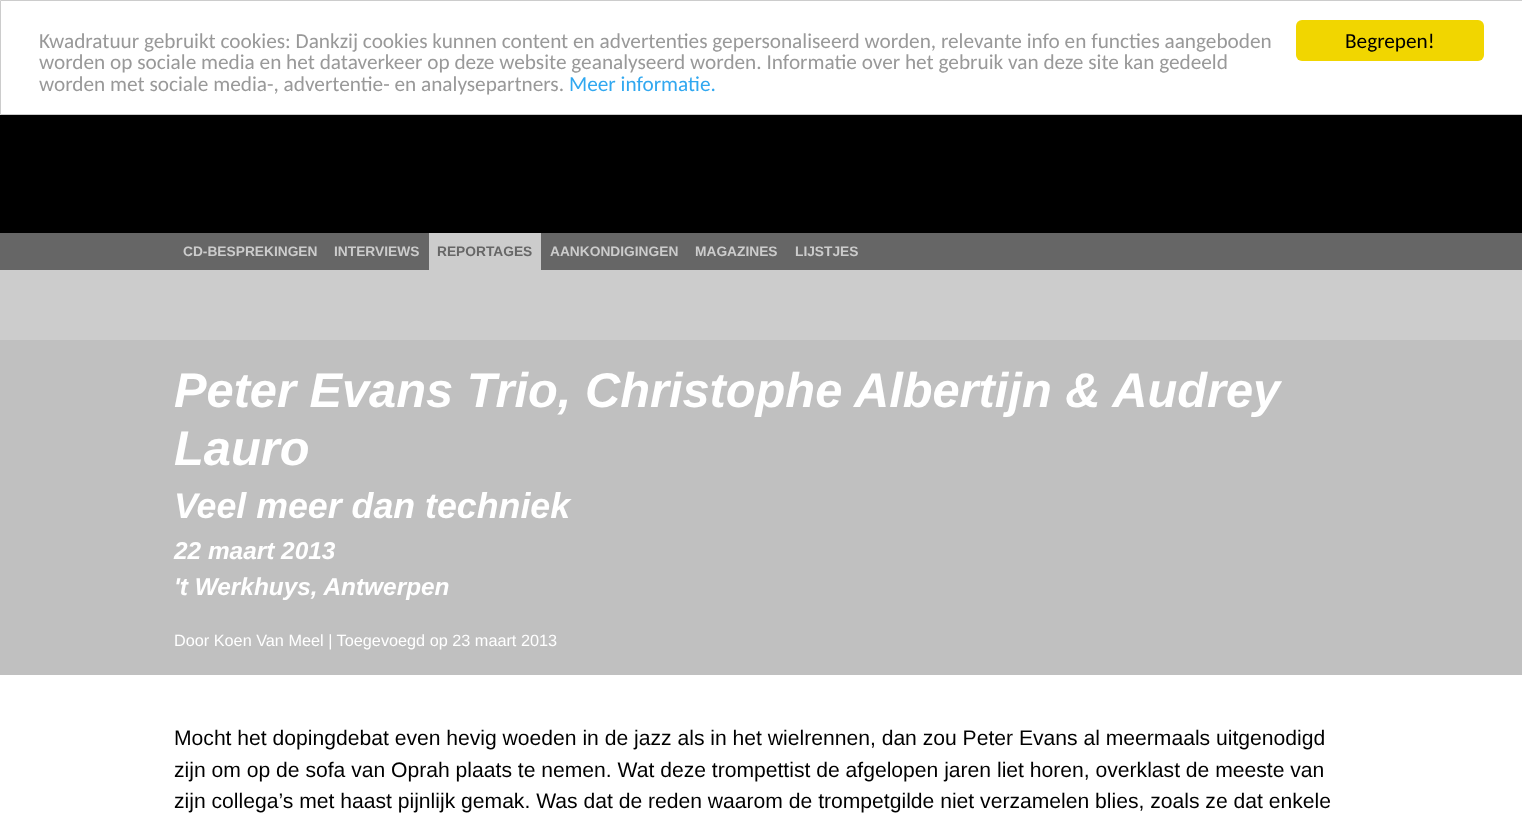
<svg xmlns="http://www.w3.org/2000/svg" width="1522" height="823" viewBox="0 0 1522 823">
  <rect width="100%" height="100%" fill="#fff"/>
  <path d="M0.5 0.5h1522v114H0.5z" fill="none" stroke="#ccc"/>
  <rect x="1296" y="20" width="188" height="41" rx="6" fill="#f1d600"/>
  <path d="M0 115h1522v118H0z" fill="#000"/>
  <path d="M0 233h1522v37H0z" fill="#666"/>
  <path d="M429 233h112v37H429z" fill="#ccc"/>
  <path d="M0 270h1522v70H0z" fill="#ccc"/>
  <path d="M0 340h1522v335H0z" fill="#c0c0c0"/>
  <g font-family="Carlito" font-size="21.25" fill="#999">
    <text x="39" y="48">Kwadratuur gebruikt cookies: Dankzij cookies kunnen content en advertenties gepersonaliseerd worden, relevante info en functies aangeboden</text>
    <text x="39" y="69">worden op sociale media en het dataverkeer op deze website geanalyseerd worden. Informatie over het gebruik van deze site kan gedeeld</text>
    <text x="39" y="91">worden met sociale media-, advertentie- en analysepartners.</text>
  </g>
  <text x="569" y="91" font-family="Carlito" font-size="21.25" fill="#31a8f0">Meer informatie.</text>
  <text x="1345" y="48" font-family="Carlito" font-size="21.25" fill="#000">Begrepen!</text>
  <g font-family="Liberation Sans" font-size="13.75" font-weight="bold" fill="#ccc">
    <text x="183" y="256">CD-BESPREKINGEN</text>
    <text x="334" y="256">INTERVIEWS</text>
  </g>
  <text x="437" y="256" font-family="Liberation Sans" font-size="13.75" font-weight="bold" fill="#666">REPORTAGES</text>
  <g font-family="Liberation Sans" font-size="13.75" font-weight="bold" fill="#ccc">
    <text x="550" y="256">AANKONDIGINGEN</text>
    <text x="695" y="256">MAGAZINES</text>
    <text x="795" y="256">LIJSTJES</text>
  </g>
  <g font-family="Liberation Sans" font-size="48.75" font-weight="bold" font-style="italic" fill="#fff">
    <text x="174" y="407">Peter Evans Trio, Christophe Albertijn &amp; Audrey</text>
    <text x="174" y="465">Lauro</text>
  </g>
  <text x="174" y="518" font-family="Liberation Sans" font-size="35.75" font-weight="bold" font-style="italic" fill="#fff">Veel meer dan techniek</text>
  <g font-family="Liberation Sans" font-size="24.4" font-weight="bold" font-style="italic" fill="#fff">
    <text x="174" y="559">22 maart 2013</text>
    <text x="174" y="595">'t Werkhuys, Antwerpen</text>
  </g>
  <text x="174" y="646" font-family="Liberation Sans" font-size="16.25" fill="#fff">Door Koen Van Meel | Toegevoegd op 23 maart 2013</text>
  <g font-family="Liberation Sans" font-size="21.12" fill="#000">
    <text x="174" y="745">Mocht het dopingdebat even hevig woeden in de jazz als in het wielrennen, dan zou Peter Evans al meermaals uitgenodigd</text>
    <text x="174" y="777">zijn om op de sofa van Oprah plaats te nemen. Wat deze trompettist de afgelopen jaren liet horen, overklast de meeste van</text>
    <text x="174" y="808">zijn collega’s met haast pijnlijk gemak. Was dat de reden waarom de trompetgilde niet verzamelen blies, zoals ze dat enkele</text>
  </g>
</svg>
